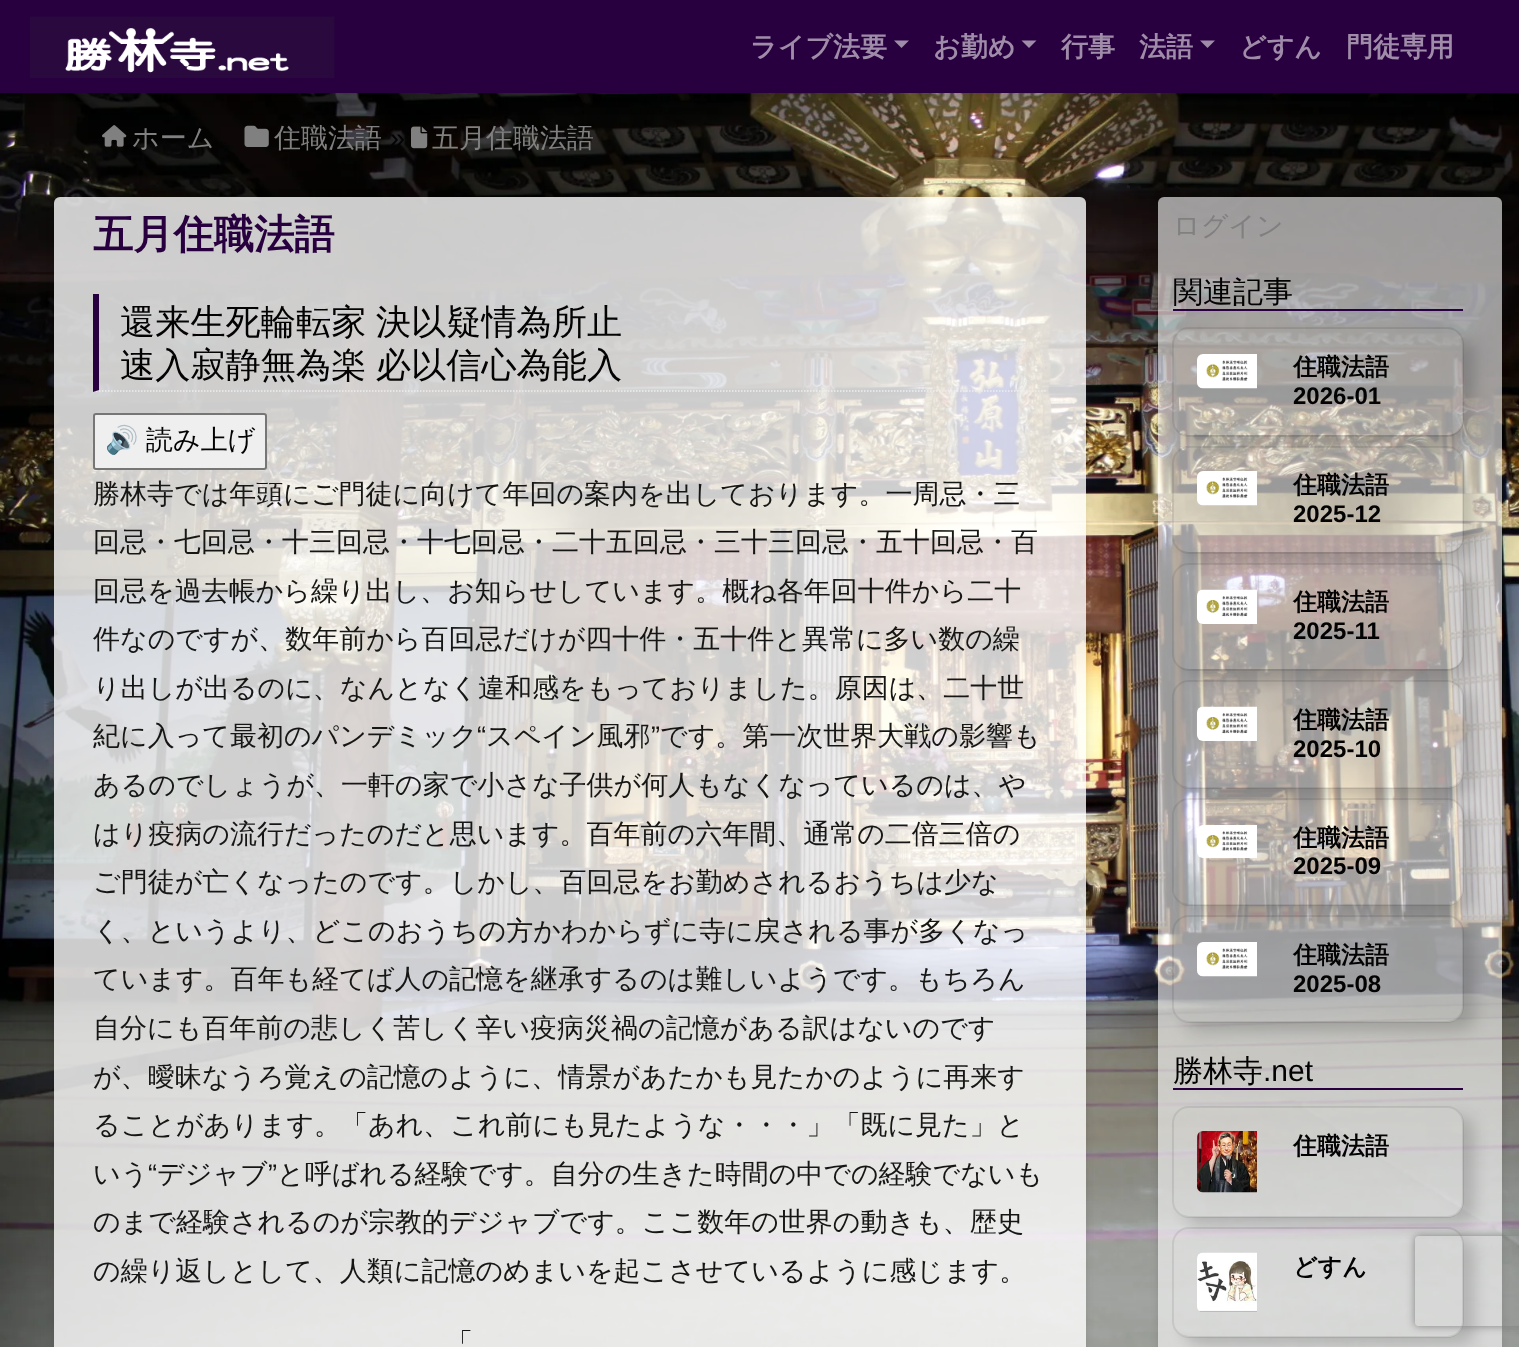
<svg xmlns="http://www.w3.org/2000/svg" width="1519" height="1347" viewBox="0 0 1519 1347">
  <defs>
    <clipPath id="clip1"><path d="M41 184H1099V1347H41ZM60 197H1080C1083.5 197 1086 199.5 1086 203V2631C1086 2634.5 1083.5 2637 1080 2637H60C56.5 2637 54 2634.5 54 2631V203C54 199.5 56.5 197 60 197Z" clip-rule="evenodd"/></clipPath>
    <clipPath id="clip2"><path d="M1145 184H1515V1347H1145ZM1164 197H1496C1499.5 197 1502 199.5 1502 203V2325C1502 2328.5 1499.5 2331 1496 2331H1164C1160.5 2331 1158 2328.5 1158 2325V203C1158 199.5 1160.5 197 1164 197Z" clip-rule="evenodd"/></clipPath>
    <clipPath id="clip3"><path d="M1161 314H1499V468H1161ZM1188 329H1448C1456.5 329 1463 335.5 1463 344V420C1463 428.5 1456.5 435 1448 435H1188C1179.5 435 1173 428.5 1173 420V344C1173 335.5 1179.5 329 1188 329Z" clip-rule="evenodd"/></clipPath>
    <clipPath id="clip4"><path d="M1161 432H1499V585H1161ZM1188 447H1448C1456.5 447 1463 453.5 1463 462V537C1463 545.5 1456.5 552 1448 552H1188C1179.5 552 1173 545.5 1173 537V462C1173 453.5 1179.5 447 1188 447Z" clip-rule="evenodd"/></clipPath>
    <clipPath id="clip5"><path d="M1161 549H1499V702H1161ZM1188 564H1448C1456.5 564 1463 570.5 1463 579V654C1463 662.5 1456.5 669 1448 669H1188C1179.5 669 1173 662.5 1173 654V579C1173 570.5 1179.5 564 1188 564Z" clip-rule="evenodd"/></clipPath>
    <clipPath id="clip6"><path d="M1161 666H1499V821H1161ZM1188 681H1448C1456.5 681 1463 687.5 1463 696V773C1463 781.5 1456.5 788 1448 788H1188C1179.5 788 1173 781.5 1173 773V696C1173 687.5 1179.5 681 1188 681Z" clip-rule="evenodd"/></clipPath>
    <clipPath id="clip7"><path d="M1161 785H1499V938H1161ZM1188 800H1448C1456.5 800 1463 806.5 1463 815V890C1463 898.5 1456.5 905 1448 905H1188C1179.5 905 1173 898.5 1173 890V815C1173 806.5 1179.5 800 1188 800Z" clip-rule="evenodd"/></clipPath>
    <clipPath id="clip8"><path d="M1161 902H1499V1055H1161ZM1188 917H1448C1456.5 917 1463 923.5 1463 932V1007C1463 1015.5 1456.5 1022 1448 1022H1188C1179.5 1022 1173 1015.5 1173 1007V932C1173 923.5 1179.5 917 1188 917Z" clip-rule="evenodd"/></clipPath>
    <clipPath id="clip9"><path d="M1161 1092H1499V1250H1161ZM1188 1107H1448C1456.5 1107 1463 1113.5 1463 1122V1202C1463 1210.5 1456.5 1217 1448 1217H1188C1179.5 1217 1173 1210.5 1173 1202V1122C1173 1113.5 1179.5 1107 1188 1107Z" clip-rule="evenodd"/></clipPath>
    <clipPath id="clip10"><path d="M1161 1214H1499V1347H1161ZM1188 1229H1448C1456.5 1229 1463 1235.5 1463 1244V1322C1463 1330.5 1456.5 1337 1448 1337H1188C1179.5 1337 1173 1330.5 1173 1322V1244C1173 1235.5 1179.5 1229 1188 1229Z" clip-rule="evenodd"/></clipPath>
    <clipPath id="clip11"><path d="M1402 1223H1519V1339H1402ZM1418 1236H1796C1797.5 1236 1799 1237.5 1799 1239V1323C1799 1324.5 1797.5 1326 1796 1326H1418C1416.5 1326 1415 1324.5 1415 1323V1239C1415 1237.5 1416.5 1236 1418 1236Z" clip-rule="evenodd"/></clipPath>
  </defs>
  <rect width="100%" height="100%" fill="#fff"/>
  <image x="0" y="93" width="1519" height="1254" href="img/1.png"/>
  <path d="M0 3h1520v93H0z" fill="#0000000d" filter="blur(3px)"/>
  <path d="M0 6h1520v93H0z" fill="#00000012" filter="blur(9px)"/>
  <path d="M0 0h1519v93H0z" fill="#29003f"/>
  <image x="30" y="16" width="305" height="62" href="img/2.png"/>
  <path d="M894 40.5H909L901.5 48Z" fill="#9f8ca9"/>
  <path d="M1021.5 40.5H1036.5L1029 48Z" fill="#9f8ca9"/>
  <path d="M1200 40.5H1215L1207.5 48Z" fill="#9f8ca9"/>
  <image x="102" y="125" width="25" height="22" href="img/3.png"/>
  <image x="244" y="125" width="25" height="22" href="img/4.png"/>
  <image x="411" y="126" width="17" height="23" href="img/5.png"/>
  <g clip-path="url(#clip1)">
    <rect x="54" y="197" width="1032" height="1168" rx="6" fill="#0000001a" filter="blur(4px)"/>
  </g>
  <rect x="54" y="197" width="1032" height="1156" rx="6" fill="#ffffffcc"/>
  <path d="M93 391H1047" fill="none" stroke="#eee" stroke-width="1.5" stroke-dasharray="1.5 1.5"/>
  <path d="M93 392V294H99V390Z" fill="#29003f"/>
  <rect x="94" y="414" width="172" height="55" rx="2" fill="#efefef" stroke="#767676" stroke-width="2"/>
  <g clip-path="url(#clip2)">
    <rect x="1158" y="197" width="344" height="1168" rx="6" fill="#0000001a" filter="blur(4px)"/>
  </g>
  <rect x="1158" y="197" width="344" height="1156" rx="6" fill="#ffffff99"/>
  <path d="M1173 309h290v2H1173z" fill="#29003f"/>
  <rect x="1173" y="328" width="290" height="108" rx="16" fill="none" stroke="#00000014" stroke-width="2"/>
  <g clip-path="url(#clip3)">
    <rect x="1185" y="338" width="290" height="106" rx="15" fill="#00000029" filter="blur(7.5px)"/>
  </g>
  <image x="1197" y="354" width="60" height="35" href="img/6.png"/>
  <rect x="1173" y="447" width="290" height="106" rx="16" fill="none" stroke="#00000014" stroke-width="2"/>
  <g clip-path="url(#clip4)">
    <rect x="1185" y="456" width="290" height="105" rx="15" fill="#00000029" filter="blur(7.5px)"/>
  </g>
  <image x="1197" y="471" width="60" height="35" href="img/7.png"/>
  <rect x="1173" y="564" width="290" height="106" rx="16" fill="none" stroke="#00000014" stroke-width="2"/>
  <g clip-path="url(#clip5)">
    <rect x="1185" y="573" width="290" height="105" rx="15" fill="#00000029" filter="blur(7.5px)"/>
  </g>
  <image x="1197" y="589" width="60" height="35" href="img/8.png"/>
  <rect x="1173" y="681" width="290" height="107" rx="16" fill="none" stroke="#00000014" stroke-width="2"/>
  <g clip-path="url(#clip6)">
    <rect x="1185" y="690" width="290" height="107" rx="15" fill="#00000029" filter="blur(7.5px)"/>
  </g>
  <image x="1197" y="706" width="60" height="35" href="img/9.png"/>
  <rect x="1173" y="799" width="290" height="106" rx="16" fill="none" stroke="#00000014" stroke-width="2"/>
  <g clip-path="url(#clip7)">
    <rect x="1185" y="809" width="290" height="105" rx="15" fill="#00000029" filter="blur(7.5px)"/>
  </g>
  <image x="1197" y="825" width="60" height="33" href="img/10.png"/>
  <rect x="1173" y="916" width="290" height="106" rx="16" fill="none" stroke="#00000014" stroke-width="2"/>
  <g clip-path="url(#clip8)">
    <rect x="1185" y="926" width="290" height="105" rx="15" fill="#00000029" filter="blur(7.5px)"/>
  </g>
  <image x="1197" y="942" width="60" height="35" href="img/11.png"/>
  <path d="M1173 1088h290v2H1173z" fill="#29003f"/>
  <rect x="1173" y="1107" width="290" height="110" rx="16" fill="none" stroke="#00000014" stroke-width="2"/>
  <g clip-path="url(#clip9)">
    <rect x="1185" y="1116" width="290" height="110" rx="15" fill="#00000029" filter="blur(7.5px)"/>
  </g>
  <image x="1197" y="1131" width="60" height="62" href="img/12.png"/>
  <rect x="1173" y="1228" width="290" height="109" rx="16" fill="none" stroke="#00000014" stroke-width="2"/>
  <g clip-path="url(#clip10)">
    <rect x="1185" y="1238" width="290" height="108" rx="15" fill="#00000029" filter="blur(7.5px)"/>
  </g>
  <image x="1197" y="1252" width="60" height="60" href="img/13.png"/>
  <g clip-path="url(#clip11)">
    <rect x="1415" y="1236" width="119" height="90" rx="3" fill="#808080" filter="blur(4px)"/>
  </g>
  <g font-family="WenQuanYi Zen Hei" font-size="27" font-weight="bold" fill="#9f8ca9">
    <text x="750" y="56">ライブ法要</text>
    <text x="933" y="56">お勤め</text>
    <text x="1061" y="56">行事</text>
    <text x="1139" y="56">法語</text>
    <text x="1239" y="56">どすん</text>
    <text x="1346" y="56">門徒専用</text>
  </g>
  <g font-family="WenQuanYi Zen Hei" font-size="27" font-weight="500" fill="#808080">
    <text x="132" y="147">ホーム</text>
    <text x="274" y="147">住職法語</text>
  </g>
  <text x="390" y="147" font-family="Liberation Sans" font-size="27" fill="#030303">»</text>
  <text x="432" y="147" font-family="WenQuanYi Zen Hei" font-size="27" font-weight="500" fill="#808080">五月住職法語</text>
  <text x="93" y="248" font-family="WenQuanYi Zen Hei" font-size="40.25" font-weight="bold" fill="#29003f">五月住職法語</text>
  <g font-family="WenQuanYi Zen Hei" font-size="35.2" font-weight="500" fill="#030303">
    <text x="120" y="334" word-spacing="-1">還来生死輪転家 決以疑情為所止</text>
    <text x="120" y="377" word-spacing="-1">速入寂静無為楽 必以信心為能入</text>
  </g>
  <text x="105" y="449" font-family="Noto Color Emoji" font-size="27" fill="#030303">🔊</text>
  <text x="146" y="449" font-family="WenQuanYi Zen Hei" font-size="27" font-weight="500" fill="#030303">読み上げ</text>
  <g font-family="WenQuanYi Zen Hei" font-size="27" font-weight="500" fill="#161615">
    <text x="93" y="503">勝林寺では年頭にご門徒に向けて年回の案内を出しております。一周忌・三</text>
    <text x="93" y="551">回忌・七回忌・十三回忌・十七回忌・二十五回忌・三十三回忌・五十回忌・百</text>
    <text x="93" y="600">回忌を過去帳から繰り出し、お知らせしています。概ね各年回十件から二十</text>
    <text x="93" y="648">件なのですが、数年前から百回忌だけが四十件・五十件と異常に多い数の繰</text>
    <text x="93" y="697">り出しが出るのに、なんとなく違和感をもっておりました。原因は、二十世</text>
    <text x="93" y="745">紀に入って最初のパンデミック</text>
  </g>
  <text x="477" y="745" font-family="Liberation Sans" font-size="27" fill="#161615">“</text>
  <text x="486" y="745" font-family="WenQuanYi Zen Hei" font-size="27" font-weight="500" fill="#161615">スペイン風邪</text>
  <text x="651" y="745" font-family="Liberation Sans" font-size="27" fill="#161615">”</text>
  <g font-family="WenQuanYi Zen Hei" font-size="27" font-weight="500" fill="#161615">
    <text x="660" y="745">です。第一次世界大戦の影響も</text>
    <text x="93" y="794">あるのでしょうが、一軒の家で小さな子供が何人もなくなっているのは、や</text>
    <text x="93" y="843">はり疫病の流行だったのだと思います。百年前の六年間、通常の二倍三倍の</text>
    <text x="93" y="891">ご門徒が亡くなったのです。しかし、百回忌をお勤めされるおうちは少な</text>
    <text x="93" y="940">く、というより、どこのおうちの方かわからずに寺に戻される事が多くなっ</text>
    <text x="93" y="988">ています。百年も経てば人の記憶を継承するのは難しいようです。もちろん</text>
    <text x="93" y="1037">自分にも百年前の悲しく苦しく辛い疫病災禍の記憶がある訳はないのです</text>
    <text x="93" y="1086">が、曖昧なうろ覚えの記憶のように、情景があたかも見たかのように再来す</text>
    <text x="93" y="1134">ることがあります。「あれ、これ前にも見たような・・・」「既に見た」と</text>
    <text x="93" y="1183">いう</text>
  </g>
  <text x="148" y="1183" font-family="Liberation Sans" font-size="27" fill="#161615">“</text>
  <text x="157" y="1183" font-family="WenQuanYi Zen Hei" font-size="27" font-weight="500" fill="#161615">デジャブ</text>
  <text x="268" y="1183" font-family="Liberation Sans" font-size="27" fill="#161615">”</text>
  <g font-family="WenQuanYi Zen Hei" font-size="27" font-weight="500" fill="#161615">
    <text x="277" y="1183">と呼ばれる経験です。自分の生きた時間の中での経験でないも</text>
    <text x="93" y="1231">のまで経験されるのが宗教的デジャブです。ここ数年の世界の動きも、歴史</text>
    <text x="93" y="1280">の繰り返しとして、人類に記憶のめまいを起こさせているように感じます。</text>
    <text x="446" y="1352">「</text>
  </g>
  <text x="1173" y="235" font-family="WenQuanYi Zen Hei" font-size="27" font-weight="500" fill="#808080">ログイン</text>
  <text x="1173" y="302" font-family="WenQuanYi Zen Hei" font-size="30" font-weight="500" fill="#030303">関連記事</text>
  <text x="1293" y="375" font-family="WenQuanYi Zen Hei" font-size="24" font-weight="bold" fill="#030303">住職法語</text>
  <text x="1293" y="404" font-family="Liberation Sans" font-size="24" font-weight="bold" fill="#030303">2026-01</text>
  <text x="1293" y="493" font-family="WenQuanYi Zen Hei" font-size="24" font-weight="bold" fill="#030303">住職法語</text>
  <text x="1293" y="522" font-family="Liberation Sans" font-size="24" font-weight="bold" fill="#030303">2025-12</text>
  <text x="1293" y="610" font-family="WenQuanYi Zen Hei" font-size="24" font-weight="bold" fill="#030303">住職法語</text>
  <text x="1293" y="639" font-family="Liberation Sans" font-size="24" font-weight="bold" fill="#030303">2025-11</text>
  <text x="1293" y="728" font-family="WenQuanYi Zen Hei" font-size="24" font-weight="bold" fill="#030303">住職法語</text>
  <text x="1293" y="757" font-family="Liberation Sans" font-size="24" font-weight="bold" fill="#030303">2025-10</text>
  <text x="1293" y="846" font-family="WenQuanYi Zen Hei" font-size="24" font-weight="bold" fill="#030303">住職法語</text>
  <text x="1293" y="874" font-family="Liberation Sans" font-size="24" font-weight="bold" fill="#030303">2025-09</text>
  <text x="1293" y="963" font-family="WenQuanYi Zen Hei" font-size="24" font-weight="bold" fill="#030303">住職法語</text>
  <text x="1293" y="992" font-family="Liberation Sans" font-size="24" font-weight="bold" fill="#030303">2025-08</text>
  <text x="1173" y="1081" font-family="WenQuanYi Zen Hei" font-size="30" font-weight="500" fill="#030303">勝林寺</text>
  <text x="1263" y="1081" font-family="Liberation Sans" font-size="30" fill="#030303">.net</text>
  <g font-family="WenQuanYi Zen Hei" font-size="24" font-weight="bold" fill="#030303">
    <text x="1293" y="1154">住職法語</text>
    <text x="1293" y="1275">どすん</text>
  </g>
</svg>
